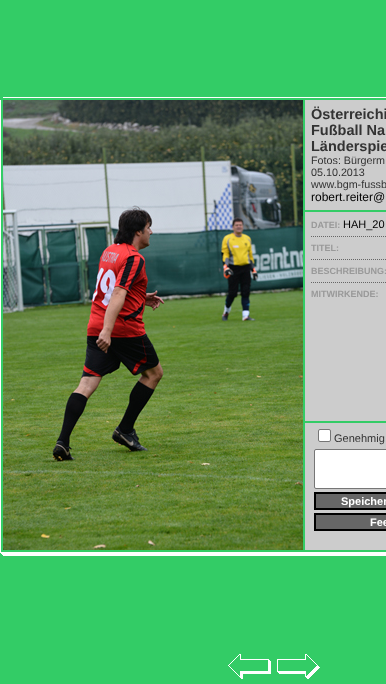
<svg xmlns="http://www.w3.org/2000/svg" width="386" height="684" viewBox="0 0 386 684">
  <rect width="100%" height="100%" fill="#3c6"/>
  <path d="M3 97h383v1H3z" fill="#fff"/>
  <path d="M0 100h1v450H0z" fill="#fff"/>
  <image x="3" y="100" width="300" height="450" href="img/1.png"/>
  <path d="M305 100h81v110H305z" fill="#ccc"/>
  <path d="M305 212h81v209H305z" fill="#ccc"/>
  <path d="M311 236.5H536" fill="none" stroke="#666" stroke-dasharray="1 1"/>
  <path d="M311 259.5H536" fill="none" stroke="#666" stroke-dasharray="1 1"/>
  <path d="M311 282.5H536" fill="none" stroke="#666" stroke-dasharray="1 1"/>
  <path d="M305 423h81v127H305z" fill="#ccc"/>
  <rect x="318.5" y="429.5" width="12" height="12" rx="1.5" fill="#fff" stroke="#767676"/>
  <rect x="314.5" y="449.5" width="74" height="39" rx="1.5" fill="#fff" stroke="#767676"/>
  <path d="M315 493h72v16H315z" fill="#666" stroke="#000" stroke-width="2"/>
  <path d="M315 514h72v16H315z" fill="#666" stroke="#000" stroke-width="2"/>
  <image x="0" y="550" width="3" height="5" href="img/2.png"/>
  <path d="M3 552h383v4H3z" fill="#fff"/>
  <image x="228" y="654" width="43" height="25" href="img/3.png"/>
  <image x="277" y="654" width="43" height="25" href="img/4.png"/>
  <g font-family="Liberation Sans" font-size="14.5" font-weight="bold" fill="#333">
    <text x="311" y="119">Österreichi</text>
    <text x="311" y="135">Fußball Na</text>
    <text x="311" y="151">Länderspie</text>
  </g>
  <g font-family="Liberation Sans" font-size="10.75" fill="#333">
    <text x="311" y="164">Fotos: Bürgerm</text>
    <text x="311" y="176">05.10.2013</text>
    <text x="311" y="188">www.bgm-fussb</text>
  </g>
  <text x="311" y="201" font-family="Liberation Sans" font-size="12" fill="#000">robert.reiter@</text>
  <text x="311" y="228" font-family="Liberation Sans" font-size="9" font-weight="bold" fill="#999">DATEI:</text>
  <text x="343" y="228" font-family="Liberation Sans" font-size="11" fill="#000">HAH_20</text>
  <g font-family="Liberation Sans" font-size="9" font-weight="bold" fill="#999">
    <text x="311" y="251">TITEL:</text>
    <text x="311" y="274">BESCHREIBUNG:</text>
    <text x="311" y="297">MITWIRKENDE:</text>
  </g>
  <text x="334" y="442" font-family="Liberation Sans" font-size="11" fill="#333">Genehmig</text>
  <g font-family="Liberation Sans" font-size="11" font-weight="bold" fill="#fff">
    <text x="341" y="505">Speicher</text>
    <text x="370" y="526">Fee</text>
  </g>
</svg>
